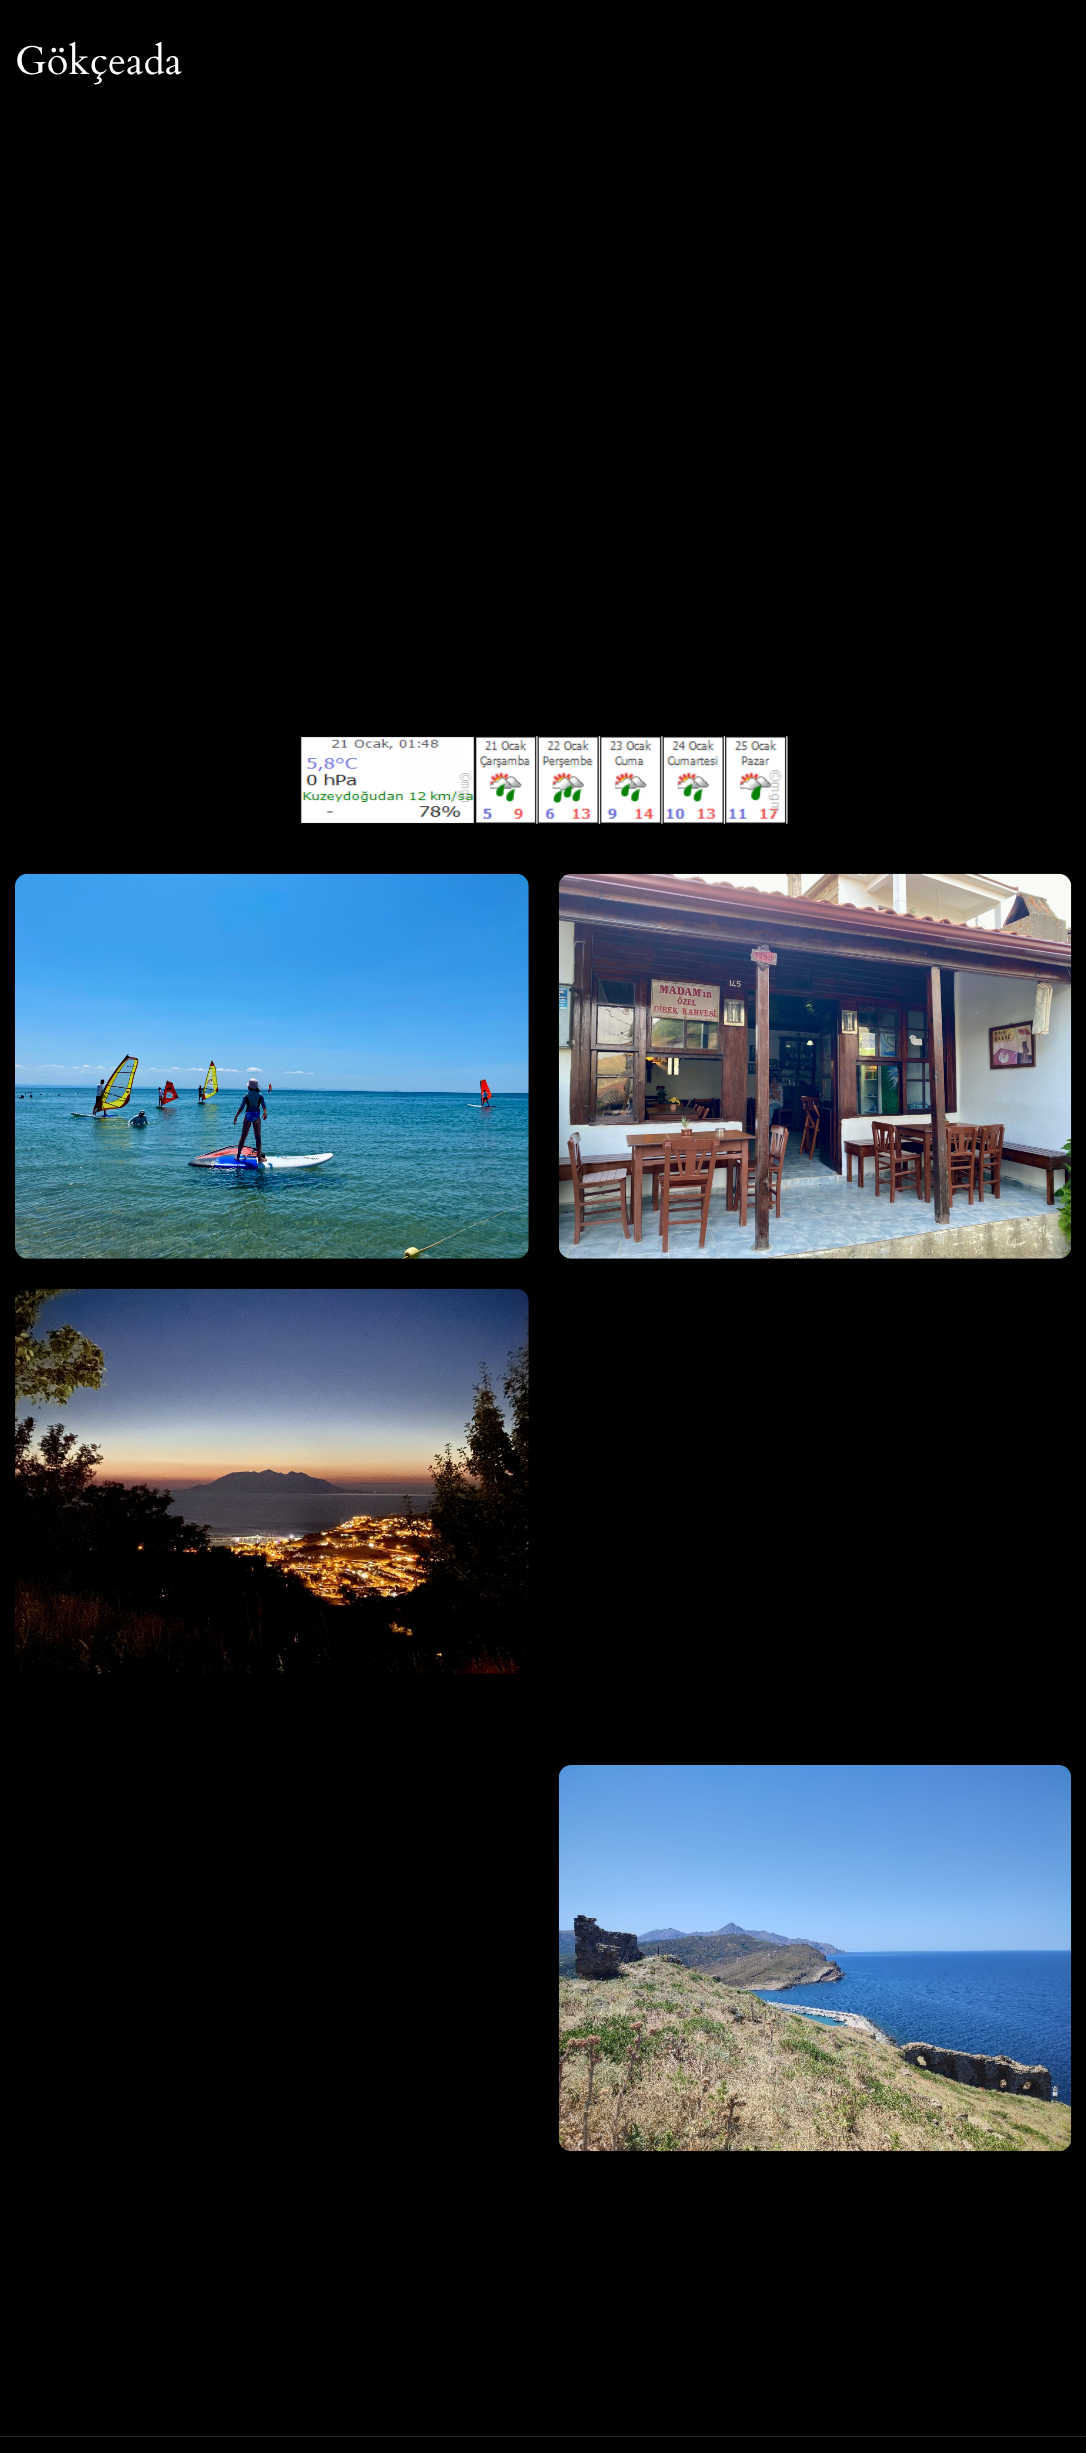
<svg xmlns="http://www.w3.org/2000/svg" width="1086" height="2453" viewBox="0 0 1086 2453">
  <rect width="100%" height="100%" fill="#000"/>
  <image x="300" y="736" width="175" height="88" href="img/1.png"/>
  <image x="475" y="736" width="313" height="88" href="img/2.png"/>
  <image x="15" y="873" width="514" height="386" href="img/3.png"/>
  <image x="558" y="873" width="514" height="386" href="img/4.png"/>
  <image x="15" y="1288" width="514" height="386" href="img/5.png"/>
  <image x="558" y="1765" width="514" height="387" href="img/6.png"/>
  <path d="M0 2436h1086v1H0z" fill="#262626"/>
  <text x="15" y="74" font-family="Cardo" font-size="40" fill="#fff">Gökçeada</text>
</svg>
